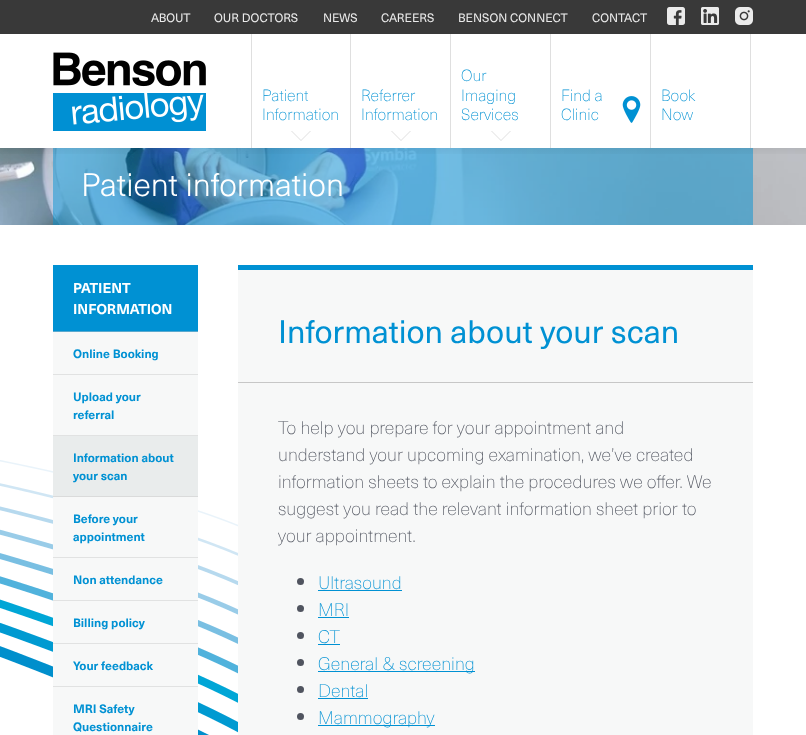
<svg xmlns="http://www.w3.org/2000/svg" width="806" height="735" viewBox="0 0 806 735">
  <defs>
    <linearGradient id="g1" gradientUnits="userSpaceOnUse" x1="403" y1="148" x2="403" y2="158"><stop offset="0" stop-color="#000" stop-opacity="0.05"/><stop offset="1" stop-color="#000" stop-opacity="0"/></linearGradient>
  </defs>
  <rect width="100%" height="100%" fill="#fff"/>
  <image x="0" y="460" width="238" height="275" href="img/1.png"/>
  <path d="M0 0h806v34H0z" fill="#393939"/>
  <image x="667" y="7" width="18" height="18" href="img/2.png"/>
  <image x="701" y="7" width="18" height="18" href="img/3.png"/>
  <image x="735" y="7" width="18" height="18" href="img/4.png"/>
  <image x="53" y="52" width="153" height="79" href="img/5.png"/>
  <path d="M350 34h1v114H350z" fill="#dfdfdf"/>
  <path d="M251 34h1v114H251z" fill="#dfdfdf"/>
  <path d="M291 131H311L301 141Z" fill="#dfdfdf"/>
  <path d="M291 130H311L301 140Z" fill="#fff"/>
  <path d="M450 34h1v114H450z" fill="#dfdfdf"/>
  <path d="M391 131H411L401 141Z" fill="#dfdfdf"/>
  <path d="M391 130H411L401 140Z" fill="#fff"/>
  <path d="M550 34h1v114H550z" fill="#dfdfdf"/>
  <path d="M491 131H511L501 141Z" fill="#dfdfdf"/>
  <path d="M491 130H511L501 140Z" fill="#fff"/>
  <path d="M650 34h1v114H650z" fill="#dfdfdf"/>
  <image x="622" y="96" width="19" height="27" href="img/6.png"/>
  <path d="M750 34h1v114H750z" fill="#dfdfdf"/>
  <image x="0" y="148" width="806" height="77" href="img/7.png"/>
  <path d="M53 148h700v77H53z" fill="#0091d380"/>
  <path d="M0 148h806v6H0z" fill="url(#g1)"/>
  <path d="M53 265h145v66H53z" fill="#0091d3"/>
  <path d="M53 331h145v1H53z" fill="#5aa9ce"/>
  <path d="M53 332h145v42H53z" fill="#f7f8f8"/>
  <path d="M53 374h145v1H53z" fill="#e1e2e2"/>
  <path d="M53 375h145v60H53z" fill="#f7f8f8"/>
  <path d="M53 435h145v1H53z" fill="#e1e2e2"/>
  <path d="M53 436h145v60H53z" fill="#e9ecec"/>
  <path d="M53 496h145v1H53z" fill="#dadbdb"/>
  <path d="M53 497h145v60H53z" fill="#f7f8f8"/>
  <path d="M53 557h145v1H53z" fill="#e1e2e2"/>
  <path d="M53 558h145v42H53z" fill="#f7f8f8"/>
  <path d="M53 600h145v1H53z" fill="#e1e2e2"/>
  <path d="M53 601h145v42H53z" fill="#f7f8f8"/>
  <path d="M53 643h145v1H53z" fill="#e1e2e2"/>
  <path d="M53 644h145v42H53z" fill="#f7f8f8"/>
  <path d="M53 686h145v1H53z" fill="#e1e2e2"/>
  <path d="M53 687h145v48H53z" fill="#f7f8f8"/>
  <path d="M238 270h515v465H238z" fill="#f7f8f8"/>
  <path d="M238 265h515v5H238z" fill="#0091d3"/>
  <path d="M238 382h515v1H238z" fill="#c7c7c7"/>
  <circle cx="300.5" cy="581.5" r="3.5" fill="#50545f"/>
  <path d="M318 590h84v1H318z" fill="#0091d3"/>
  <circle cx="300.5" cy="608.5" r="3.5" fill="#50545f"/>
  <path d="M318 617h31v1H318z" fill="#0091d3"/>
  <circle cx="300.5" cy="635.5" r="3.5" fill="#50545f"/>
  <path d="M318 644h22v1H318z" fill="#0091d3"/>
  <circle cx="300.5" cy="662.5" r="3.5" fill="#50545f"/>
  <path d="M318 671h157v1H318z" fill="#0091d3"/>
  <circle cx="300.5" cy="689.5" r="3.5" fill="#50545f"/>
  <path d="M318 698h50v1H318z" fill="#0091d3"/>
  <circle cx="300.5" cy="716.5" r="3.5" fill="#50545f"/>
  <path d="M318 725h117v1H318z" fill="#0091d3"/>
  <g font-family="'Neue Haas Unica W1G'" font-size="12" fill="#ebebeb">
    <text x="151" y="22">ABOUT</text>
    <text x="214" y="22">OUR DOCTORS</text>
    <text x="323" y="22">NEWS</text>
    <text x="381" y="22">CAREERS</text>
    <text x="458" y="22">BENSON CONNECT</text>
    <text x="592" y="22">CONTACT</text>
  </g>
  <g font-family="'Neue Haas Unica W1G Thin'" font-size="16" font-weight="100" fill="#0091d3">
    <text x="262" y="101">Patient</text>
    <text x="262" y="120">Information</text>
    <text x="361" y="101">Referrer</text>
    <text x="361" y="120">Information</text>
    <text x="461" y="81">Our</text>
    <text x="461" y="101">Imaging</text>
    <text x="461" y="120">Services</text>
    <text x="561" y="101">Find a</text>
    <text x="561" y="120">Clinic</text>
    <text x="661" y="101">Book</text>
    <text x="661" y="120">Now</text>
  </g>
  <text x="81" y="196" font-family="'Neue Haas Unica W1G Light'" font-size="32" font-weight="300" fill="#fff">Patient information</text>
  <g font-family="'Neue Haas Unica W1G'" font-size="14" font-weight="bold" fill="#fff">
    <text x="73" y="293">PATIENT</text>
    <text x="73" y="314">INFORMATION</text>
  </g>
  <g font-family="'Neue Haas Unica W1G'" font-size="12" font-weight="bold" fill="#0091d3">
    <text x="73" y="358">Online Booking</text>
    <text x="73" y="401">Upload your</text>
    <text x="73" y="419">referral</text>
    <text x="73" y="462">Information about</text>
    <text x="73" y="480">your scan</text>
    <text x="73" y="523">Before your</text>
    <text x="73" y="541">appointment</text>
    <text x="73" y="584">Non attendance</text>
    <text x="73" y="627">Billing policy</text>
    <text x="73" y="670">Your feedback</text>
    <text x="73" y="713">MRI Safety</text>
    <text x="73" y="731">Questionnaire</text>
  </g>
  <text x="278" y="343" font-family="'Neue Haas Unica W1G'" font-size="32" fill="#0091d3">Information about your scan</text>
  <g font-family="'Neue Haas Unica W1G Thin'" font-size="18" font-weight="100" fill="#50545f">
    <text x="278" y="434">To help you prepare for your appointment and</text>
    <text x="278" y="461">understand your upcoming examination, we’ve created</text>
    <text x="278" y="488">information sheets to explain the procedures we offer. We</text>
    <text x="278" y="515">suggest you read the relevant information sheet prior to</text>
    <text x="278" y="542">your appointment.</text>
  </g>
  <g font-family="'Neue Haas Unica W1G Thin'" font-size="18" font-weight="100" fill="#0091d3">
    <text x="318" y="589">Ultrasound</text>
    <text x="318" y="616">MRI</text>
    <text x="318" y="643">CT</text>
    <text x="318" y="670">General &amp; screening</text>
    <text x="318" y="697">Dental</text>
    <text x="318" y="724">Mammography</text>
  </g>
</svg>
